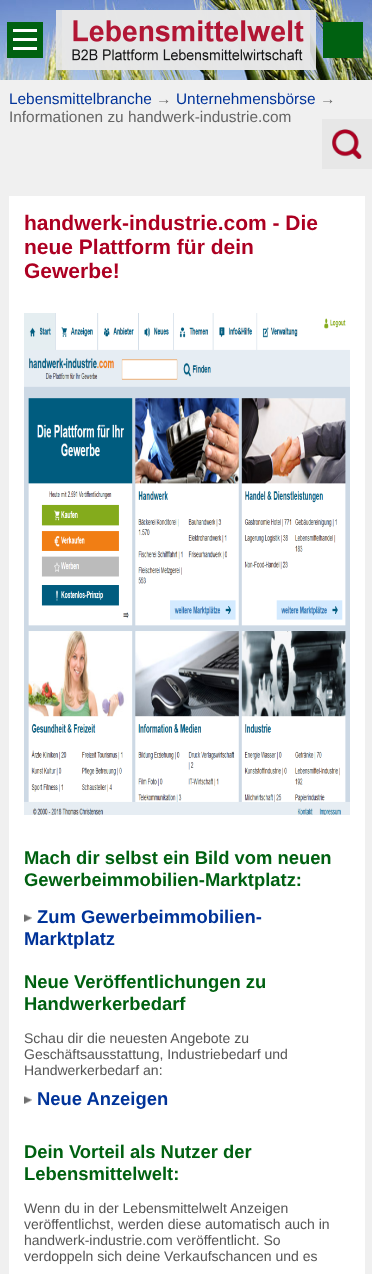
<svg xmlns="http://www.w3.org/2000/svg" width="372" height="1274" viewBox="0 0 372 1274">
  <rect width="100%" height="100%" fill="#fff"/>
  <image x="0" y="0" width="372" height="80" href="img/1.png"/>
  <path d="M7 22h36v36H7z" fill="#006111"/>
  <path d="M13 29h24v3H13z" fill="#fff"/>
  <path d="M13 38h24v3H13z" fill="#fff"/>
  <path d="M13 47h24v3H13z" fill="#fff"/>
  <path d="M56 10h260v60H56z" fill="#e7e7e7e6"/>
  <image x="62" y="10" width="248" height="60" href="img/2.png"/>
  <path d="M0 80h372v1194H0z" fill="#f0f0f0"/>
  <path d="M9 196h356v1078H9z" fill="#fff"/>
  <image x="24" y="313" width="326" height="502" href="img/3.png"/>
  <image x="24" y="914" width="8" height="8" href="img/4.png"/>
  <image x="24" y="1096" width="8" height="8" href="img/4.png"/>
  <path d="M323 22h40v36H323z" fill="#006111"/>
  <path d="M322 119h50v50H322z" fill="#e7e7e7"/>
  <image x="332" y="129" width="30" height="30" href="img/5.png"/>
  <text x="9" y="104" font-family="Liberation Sans" font-size="15.4" fill="#039">Lebensmittelbranche</text>
  <text x="156" y="104" font-family="Liberation Sans" font-size="15.4" fill="#666">→</text>
  <text x="176" y="104" font-family="Liberation Sans" font-size="15.4" fill="#039">Unternehmensbörse</text>
  <g font-family="Liberation Sans" font-size="15.4" fill="#666">
    <text x="320" y="104">→</text>
    <text x="9" y="122">Informationen zu handwerk-industrie.com</text>
  </g>
  <g font-family="Liberation Sans" font-size="21" font-weight="bold" fill="#ad0022">
    <text x="24" y="230">handwerk-industrie.com - Die</text>
    <text x="24" y="254">neue Plattform für dein</text>
    <text x="24" y="278">Gewerbe!</text>
  </g>
  <g font-family="Liberation Sans" font-size="18.4" font-weight="bold" fill="#006111">
    <text x="24" y="864">Mach dir selbst ein Bild vom neuen</text>
    <text x="24" y="886">Gewerbeimmobilien-Marktplatz:</text>
  </g>
  <g font-family="Liberation Sans" font-size="18.4" font-weight="bold" fill="#039">
    <text x="37" y="923">Zum Gewerbeimmobilien-</text>
    <text x="24" y="945">Marktplatz</text>
  </g>
  <g font-family="Liberation Sans" font-size="18.4" font-weight="bold" fill="#006111">
    <text x="24" y="988">Neue Veröffentlichungen zu</text>
    <text x="24" y="1010">Handwerkerbedarf</text>
  </g>
  <g font-family="Liberation Sans" font-size="14" fill="#555">
    <text x="24" y="1043">Schau dir die neuesten Angebote zu</text>
    <text x="24" y="1059">Geschäftsausstattung, Industriebedarf und</text>
    <text x="24" y="1075">Handwerkerbedarf an:</text>
  </g>
  <text x="37" y="1105" font-family="Liberation Sans" font-size="18.4" font-weight="bold" fill="#039">Neue Anzeigen</text>
  <g font-family="Liberation Sans" font-size="18.4" font-weight="bold" fill="#006111">
    <text x="24" y="1158">Dein Vorteil als Nutzer der</text>
    <text x="24" y="1180">Lebensmittelwelt:</text>
  </g>
  <g font-family="Liberation Sans" font-size="14" fill="#555">
    <text x="24" y="1213">Wenn du in der Lebensmittelwelt Anzeigen</text>
    <text x="24" y="1229">veröffentlichst, werden diese automatisch auch in</text>
    <text x="24" y="1245">handwerk-industrie.com veröffentlicht. So</text>
    <text x="24" y="1261">verdoppeln sich deine Verkaufschancen und es</text>
  </g>
</svg>
